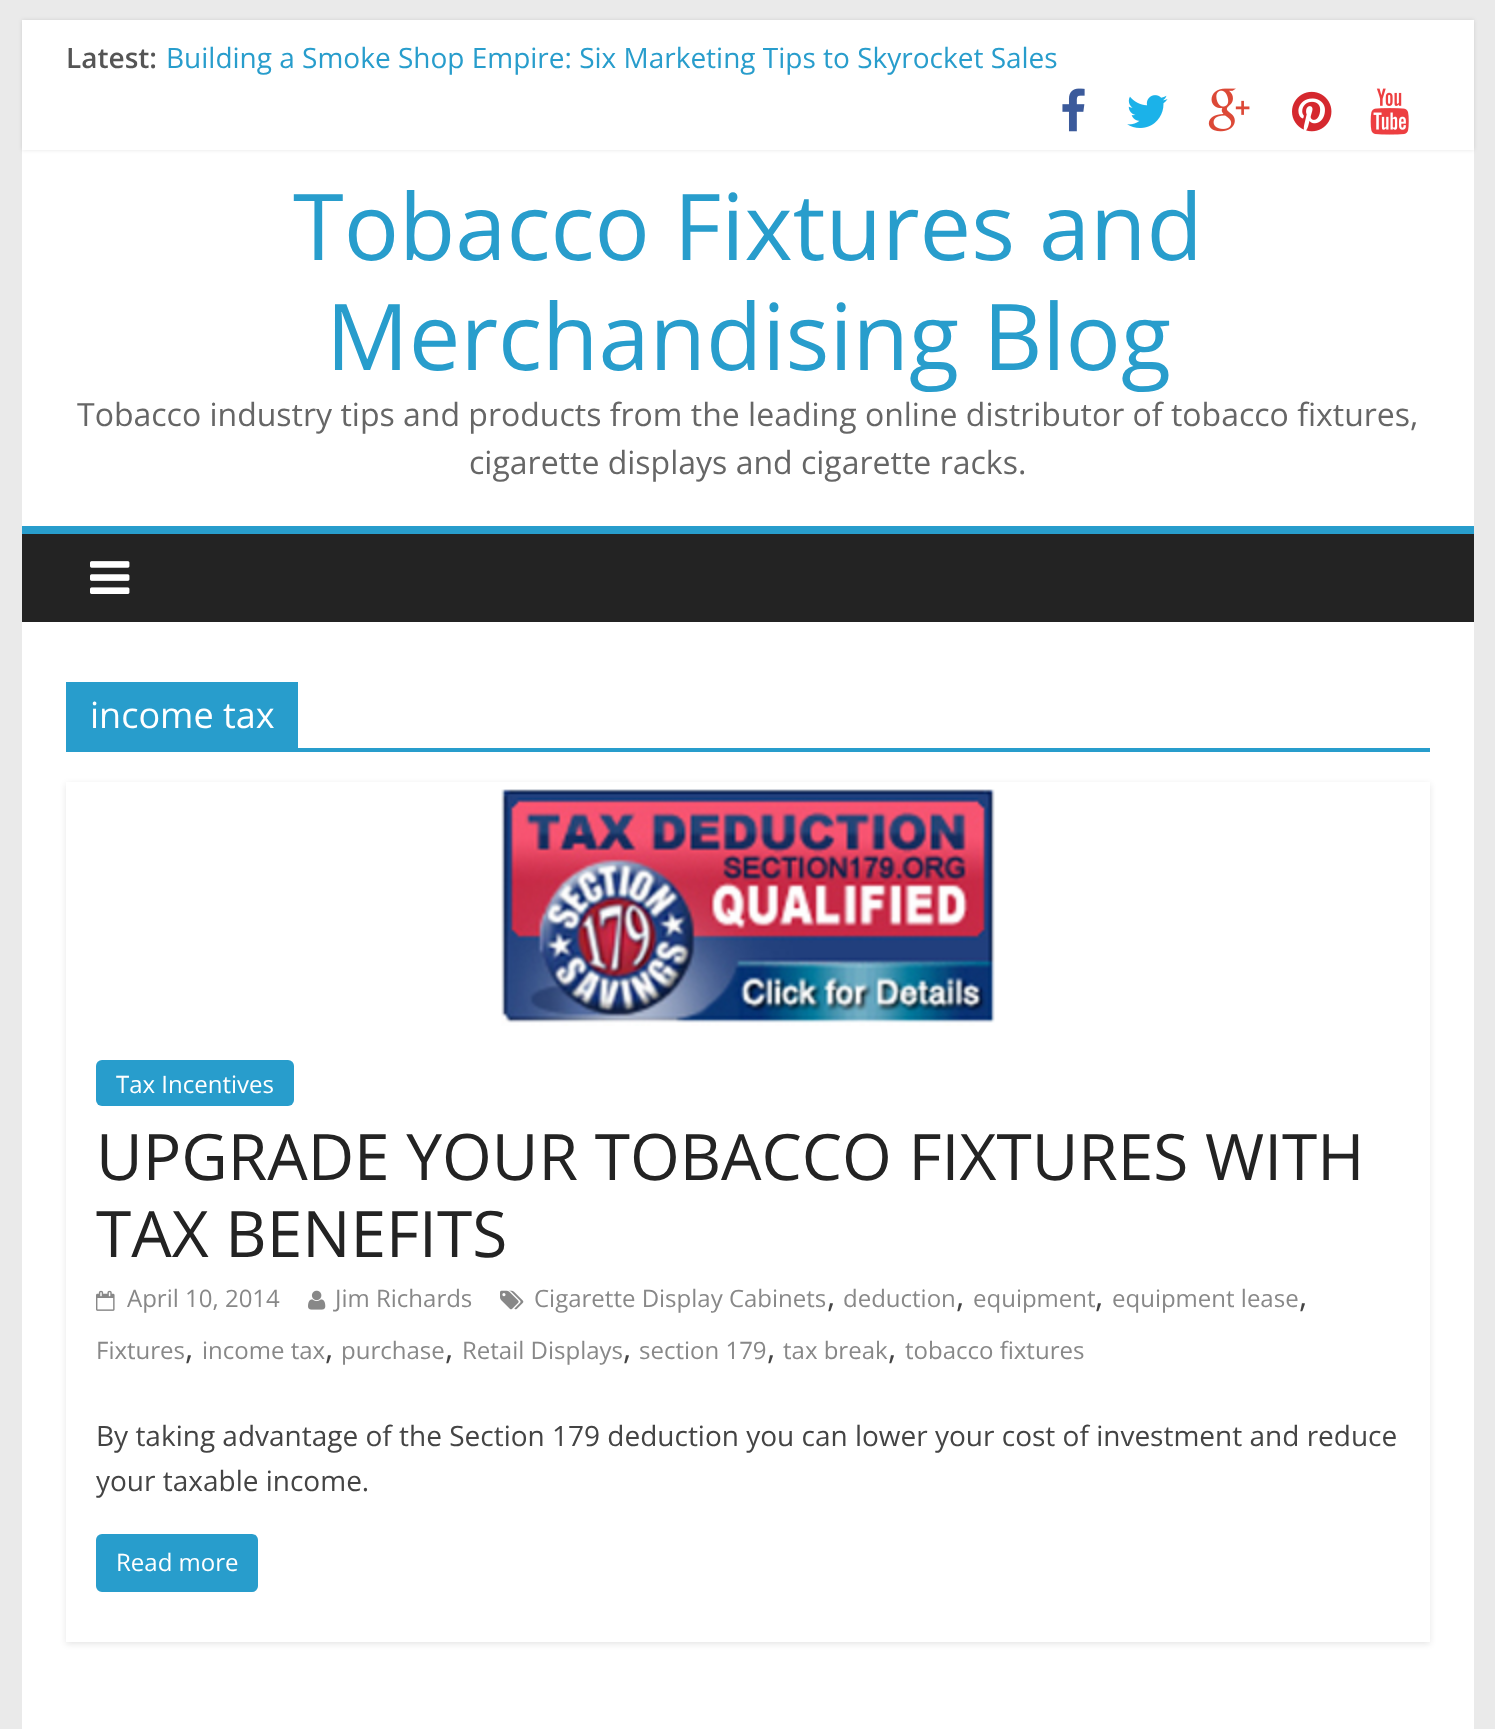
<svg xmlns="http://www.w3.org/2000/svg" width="1495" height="1729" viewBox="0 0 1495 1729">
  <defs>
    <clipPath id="clip1"><path d="M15 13H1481V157H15ZM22 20H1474V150H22Z" clip-rule="evenodd"/></clipPath>
    <clipPath id="clip2"><path d="M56 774H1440V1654H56ZM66 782H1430V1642H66Z" clip-rule="evenodd"/></clipPath>
  </defs>
  <rect width="100%" height="100%" fill="#eaeaea"/>
  <path d="M22 20h1452v506H22z" fill="#fff"/>
  <g clip-path="url(#clip1)">
    <path d="M22 20h1452v130H22z" fill="#0000001a" filter="blur(2px)"/>
  </g>
  <image x="1062" y="88" width="23" height="44" href="img/1.png"/>
  <image x="1127" y="95" width="41" height="33" href="img/2.png"/>
  <image x="1208" y="88" width="42" height="44" href="img/3.png"/>
  <image x="1292" y="91" width="40" height="41" href="img/4.png"/>
  <image x="1370" y="88" width="39" height="47" href="img/5.png"/>
  <path d="M22 534h1452v88H22z" fill="#232323"/>
  <path d="M22 526h1452v8H22z" fill="#289dcc"/>
  <image x="90" y="561" width="40" height="33" href="img/6.png"/>
  <path d="M22 622h1452v1107H22z" fill="#fff"/>
  <path d="M66 748h1364v4H66z" fill="#289dcc"/>
  <path d="M66 682h232v66H66z" fill="#289dcc"/>
  <g clip-path="url(#clip2)">
    <path d="M66 784h1364v860H66z" fill="#0000001a" filter="blur(3px)"/>
  </g>
  <image x="501" y="789" width="494" height="237" href="img/7.png"/>
  <rect x="96" y="1060" width="198" height="46" rx="6" fill="#289dcc"/>
  <image x="500" y="1290" width="24" height="20" href="img/8.png"/>
  <image x="96" y="1290" width="19" height="21" href="img/9.png"/>
  <image x="308" y="1290" width="18" height="20" href="img/10.png"/>
  <rect x="96" y="1534" width="162" height="58" rx="6" fill="#289dcc"/>
  <text x="66" y="68" font-family="Open Sans" font-size="28" font-weight="600" fill="#555">Latest:</text>
  <text x="166" y="68" font-family="Open Sans" font-size="28" fill="#289dcc">Building a Smoke Shop Empire: Six Marketing Tips to Skyrocket Sales</text>
  <g font-family="Open Sans" font-size="92" fill="#289dcc">
    <text x="293" y="260">Tobacco Fixtures and</text>
    <text x="326" y="370">Merchandising Blog</text>
  </g>
  <g font-family="Open Sans" font-size="32" fill="#666">
    <text x="77" y="426">Tobacco industry tips and products from the leading online distributor of tobacco fixtures,</text>
    <text x="469" y="474">cigarette displays and cigarette racks.</text>
  </g>
  <text x="90" y="728" font-family="Open Sans" font-size="36" fill="#fff">income tax</text>
  <text x="116" y="1093" font-family="Open Sans" font-size="24" fill="#fff">Tax Incentives</text>
  <g font-family="Open Sans" font-size="64" fill="#232323">
    <text x="96" y="1180">UPGRADE YOUR TOBACCO FIXTURES WITH</text>
    <text x="96" y="1257">TAX BENEFITS</text>
  </g>
  <text x="534" y="1307" font-family="Open Sans" font-size="24" fill="#888">Cigarette Display Cabinets</text>
  <text x="827" y="1307" font-family="Open Sans" font-size="32" fill="#444">,</text>
  <text x="843" y="1307" font-family="Open Sans" font-size="24" fill="#888">deduction</text>
  <text x="956" y="1307" font-family="Open Sans" font-size="32" fill="#444">,</text>
  <text x="973" y="1307" font-family="Open Sans" font-size="24" fill="#888">equipment</text>
  <text x="1095" y="1307" font-family="Open Sans" font-size="32" fill="#444">,</text>
  <text x="1112" y="1307" font-family="Open Sans" font-size="24" fill="#888">equipment lease</text>
  <text x="1299" y="1307" font-family="Open Sans" font-size="32" fill="#444">,</text>
  <text x="96" y="1359" font-family="Open Sans" font-size="24" fill="#888">Fixtures</text>
  <text x="185" y="1359" font-family="Open Sans" font-size="32" fill="#444">,</text>
  <text x="202" y="1359" font-family="Open Sans" font-size="24" fill="#888">income tax</text>
  <text x="325" y="1359" font-family="Open Sans" font-size="32" fill="#444">,</text>
  <text x="341" y="1359" font-family="Open Sans" font-size="24" fill="#888">purchase</text>
  <text x="445" y="1359" font-family="Open Sans" font-size="32" fill="#444">,</text>
  <text x="462" y="1359" font-family="Open Sans" font-size="24" fill="#888">Retail Displays</text>
  <text x="623" y="1359" font-family="Open Sans" font-size="32" fill="#444">,</text>
  <text x="639" y="1359" font-family="Open Sans" font-size="24" fill="#888">section 179</text>
  <text x="767" y="1359" font-family="Open Sans" font-size="32" fill="#444">,</text>
  <text x="783" y="1359" font-family="Open Sans" font-size="24" fill="#888">tax break</text>
  <text x="888" y="1359" font-family="Open Sans" font-size="32" fill="#444">,</text>
  <g font-family="Open Sans" font-size="24" fill="#888">
    <text x="905" y="1359">tobacco fixtures</text>
    <text x="127" y="1307">April 10, 2014</text>
    <text x="335" y="1307">Jim Richards</text>
  </g>
  <g font-family="Open Sans" font-size="28" fill="#444">
    <text x="96" y="1446">By taking advantage of the Section 179 deduction you can lower your cost of investment and reduce</text>
    <text x="96" y="1491">your taxable income.</text>
  </g>
  <text x="116" y="1571" font-family="Open Sans" font-size="24" fill="#fff">Read more</text>
</svg>
